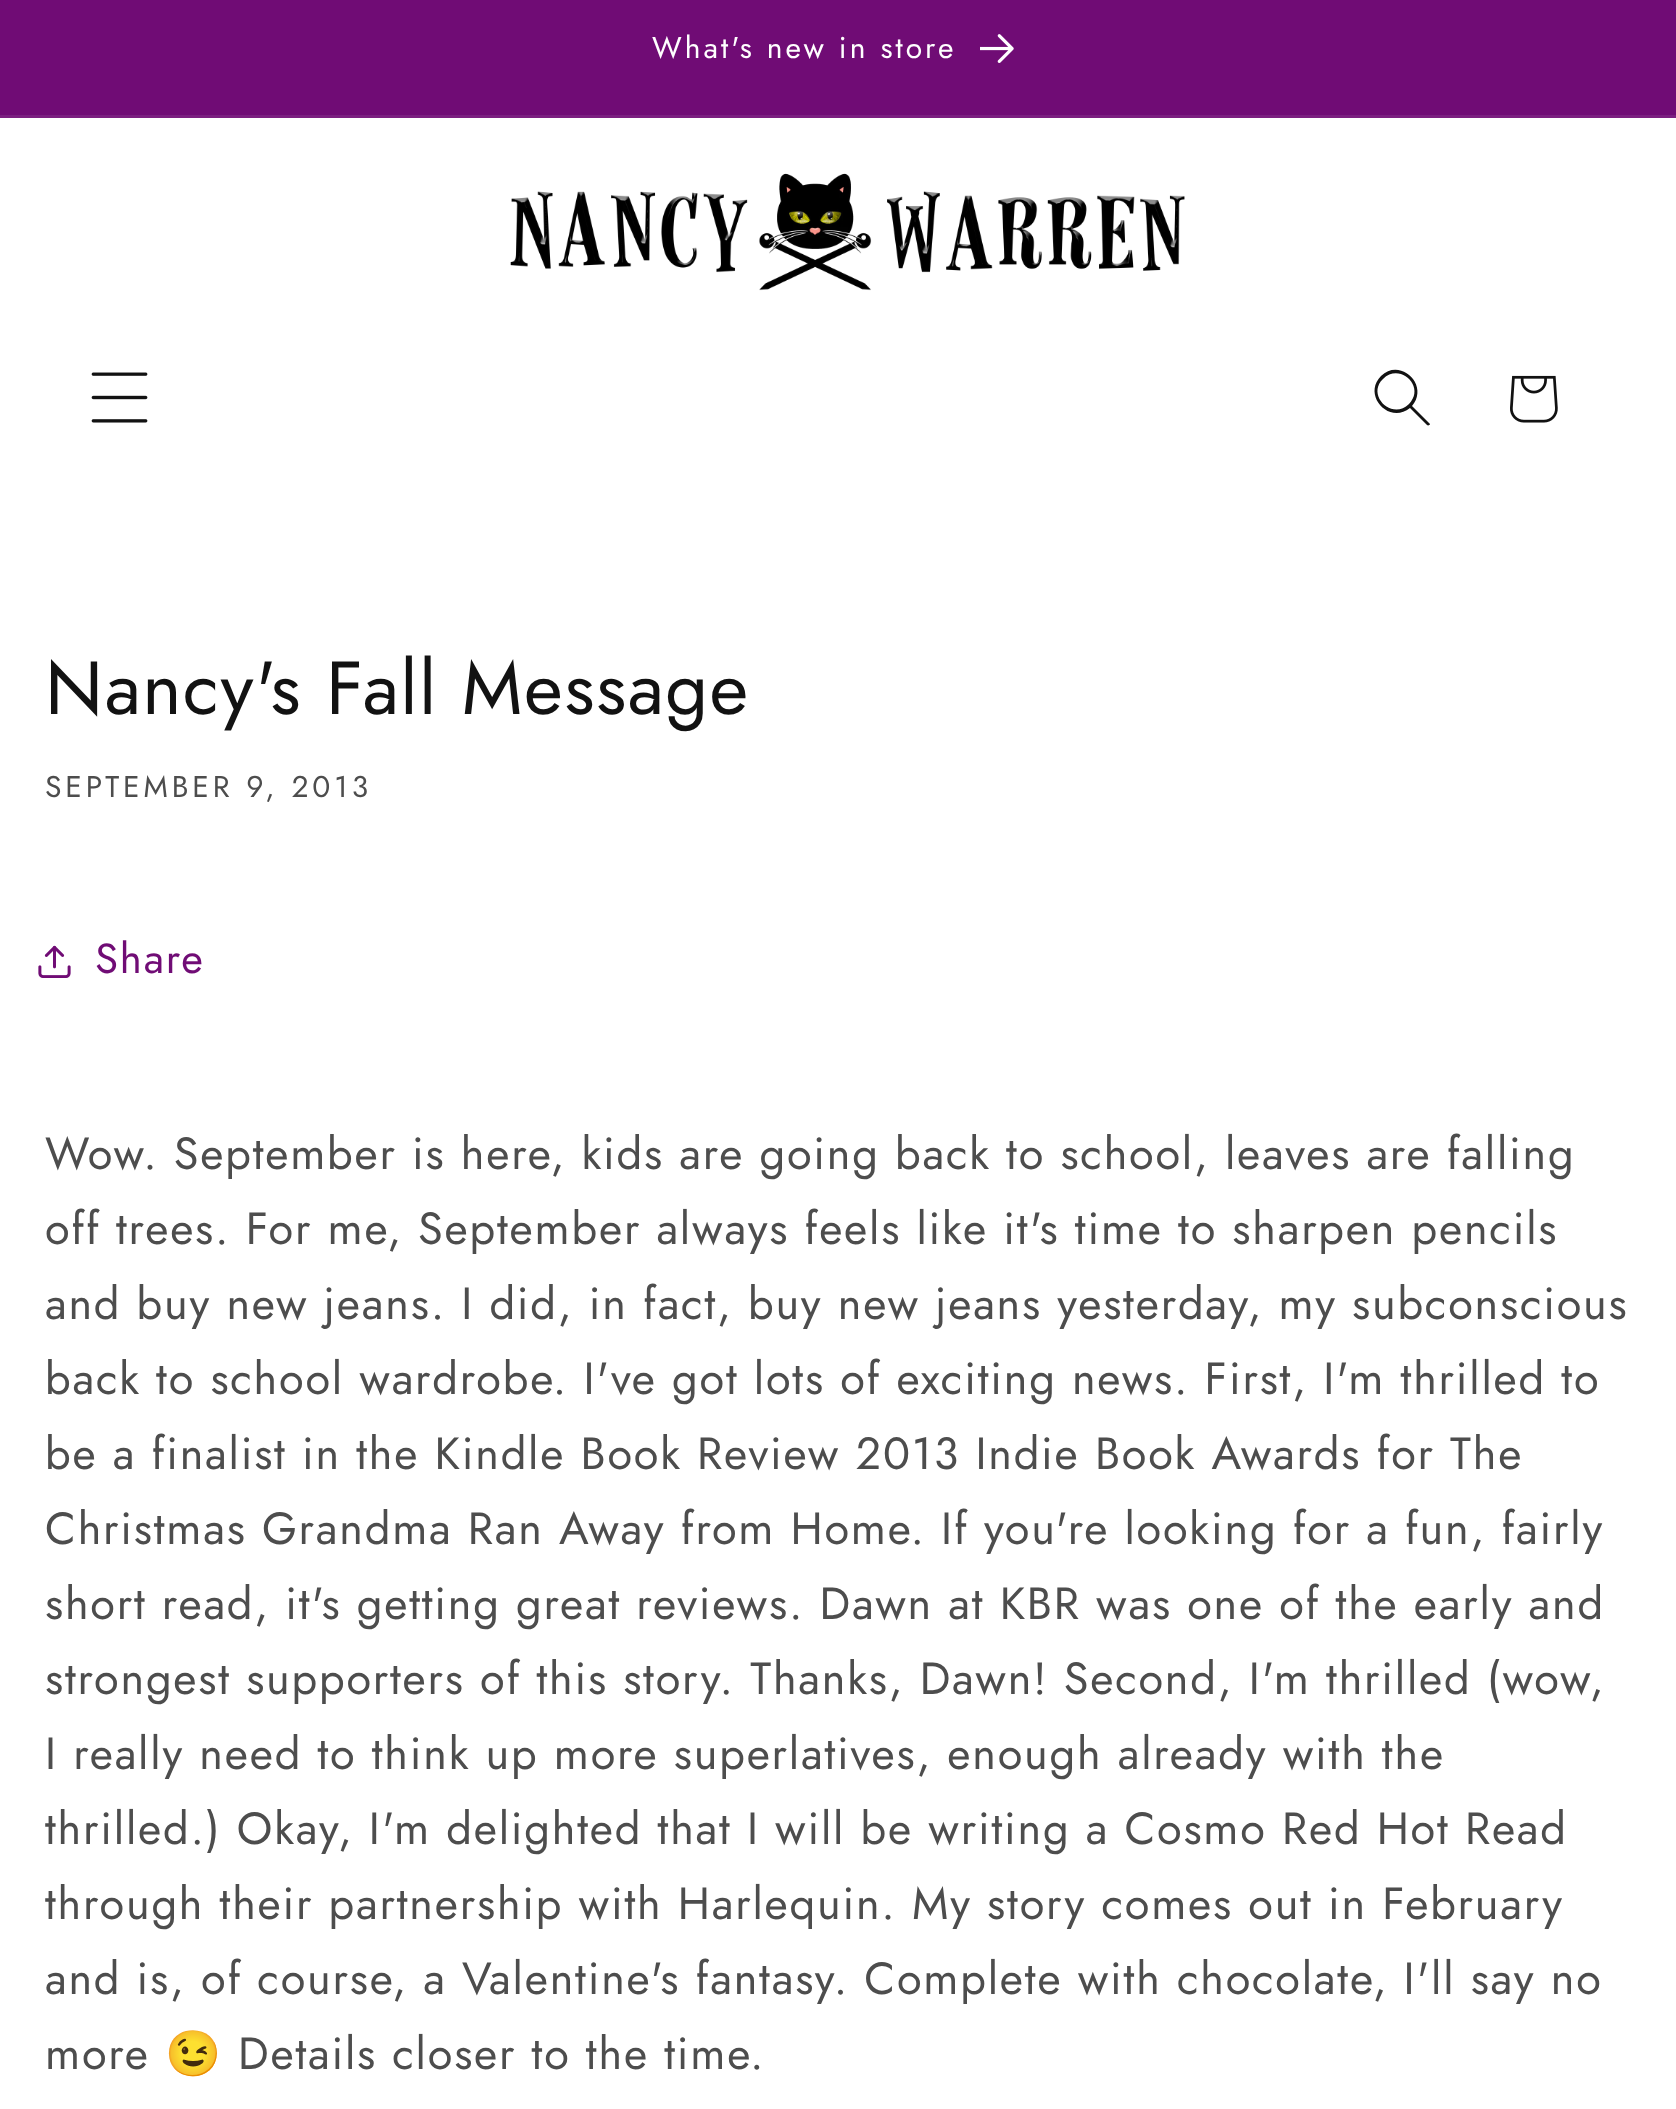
<svg xmlns="http://www.w3.org/2000/svg" width="1676" height="2109" viewBox="0 0 1676 2109">
  <rect width="100%" height="100%" fill="#fff"/>
  <path d="M0 0h1676v115H0z" fill="#700c75"/>
  <path d="M0 115h1676v3H0z" fill="#7b1f80"/>
  <image x="980" y="34" width="34" height="29" href="img/1.png"/>
  <image x="510" y="173" width="675" height="118" href="img/2.png"/>
  <image x="91" y="372" width="57" height="51" href="img/3.png"/>
  <path d="M1409 404C1392 421 1366 395 1383 379C1400 362 1426 387 1409 404M1410 408C1389 425 1362 395 1381 376C1400 357 1430 385 1412 406L1430 424C1430 425 1428 426 1427 425Z" fill="#121212" fill-rule="evenodd"/>
  <image x="1510" y="375" width="48" height="48" href="img/4.png"/>
  <image x="38" y="945" width="33" height="33" href="img/5.png"/>
  <text x="652" y="58" font-family="Jost" font-size="30" letter-spacing="3" fill="#fff">What's new in store</text>
  <text x="45" y="714" font-family="Jost" font-size="75" letter-spacing="1.5" fill="#121212">Nancy's Fall Message</text>
  <text x="45" y="797" font-family="Jost" font-size="30" letter-spacing="3.9" fill="#4d4d4d">SEPTEMBER 9, 2013</text>
  <text x="95" y="973" font-family="Jost" font-size="42" letter-spacing="1.8" fill="#700c75">Share</text>
  <g font-family="Jost" font-size="45" letter-spacing="1.8" fill="#4d4d4d">
    <text x="45" y="1169">Wow. September is here, kids are going back to school, leaves are falling</text>
    <text x="45" y="1244">off trees. For me, September always feels like it's time to sharpen pencils</text>
    <text x="45" y="1319">and buy new jeans. I did, in fact, buy new jeans yesterday, my subconscious</text>
    <text x="45" y="1394">back to school wardrobe. I've got lots of exciting news. First, I'm thrilled to</text>
    <text x="45" y="1469">be a finalist in the Kindle Book Review 2013 Indie Book Awards for The</text>
    <text x="45" y="1544">Christmas Grandma Ran Away from Home. If you're looking for a fun, fairly</text>
    <text x="45" y="1619">short read, it's getting great reviews. Dawn at KBR was one of the early and</text>
    <text x="45" y="1694">strongest supporters of this story. Thanks, Dawn! Second, I'm thrilled (wow,</text>
    <text x="45" y="1769">I really need to think up more superlatives, enough already with the</text>
    <text x="45" y="1844">thrilled.) Okay, I'm delighted that I will be writing a Cosmo Red Hot Read</text>
    <text x="45" y="1919">through their partnership with Harlequin. My story comes out in February</text>
    <text x="45" y="1994">and is, of course, a Valentine's fantasy. Complete with chocolate, I'll say no</text>
    <text x="45" y="2069">more</text>
  </g>
  <text x="165" y="2069" font-family="Noto Color Emoji" font-size="45" letter-spacing="1.8" fill="#4d4d4d">😉</text>
  <text x="238" y="2069" font-family="Jost" font-size="45" letter-spacing="1.8" fill="#4d4d4d">Details closer to the time.</text>
</svg>
